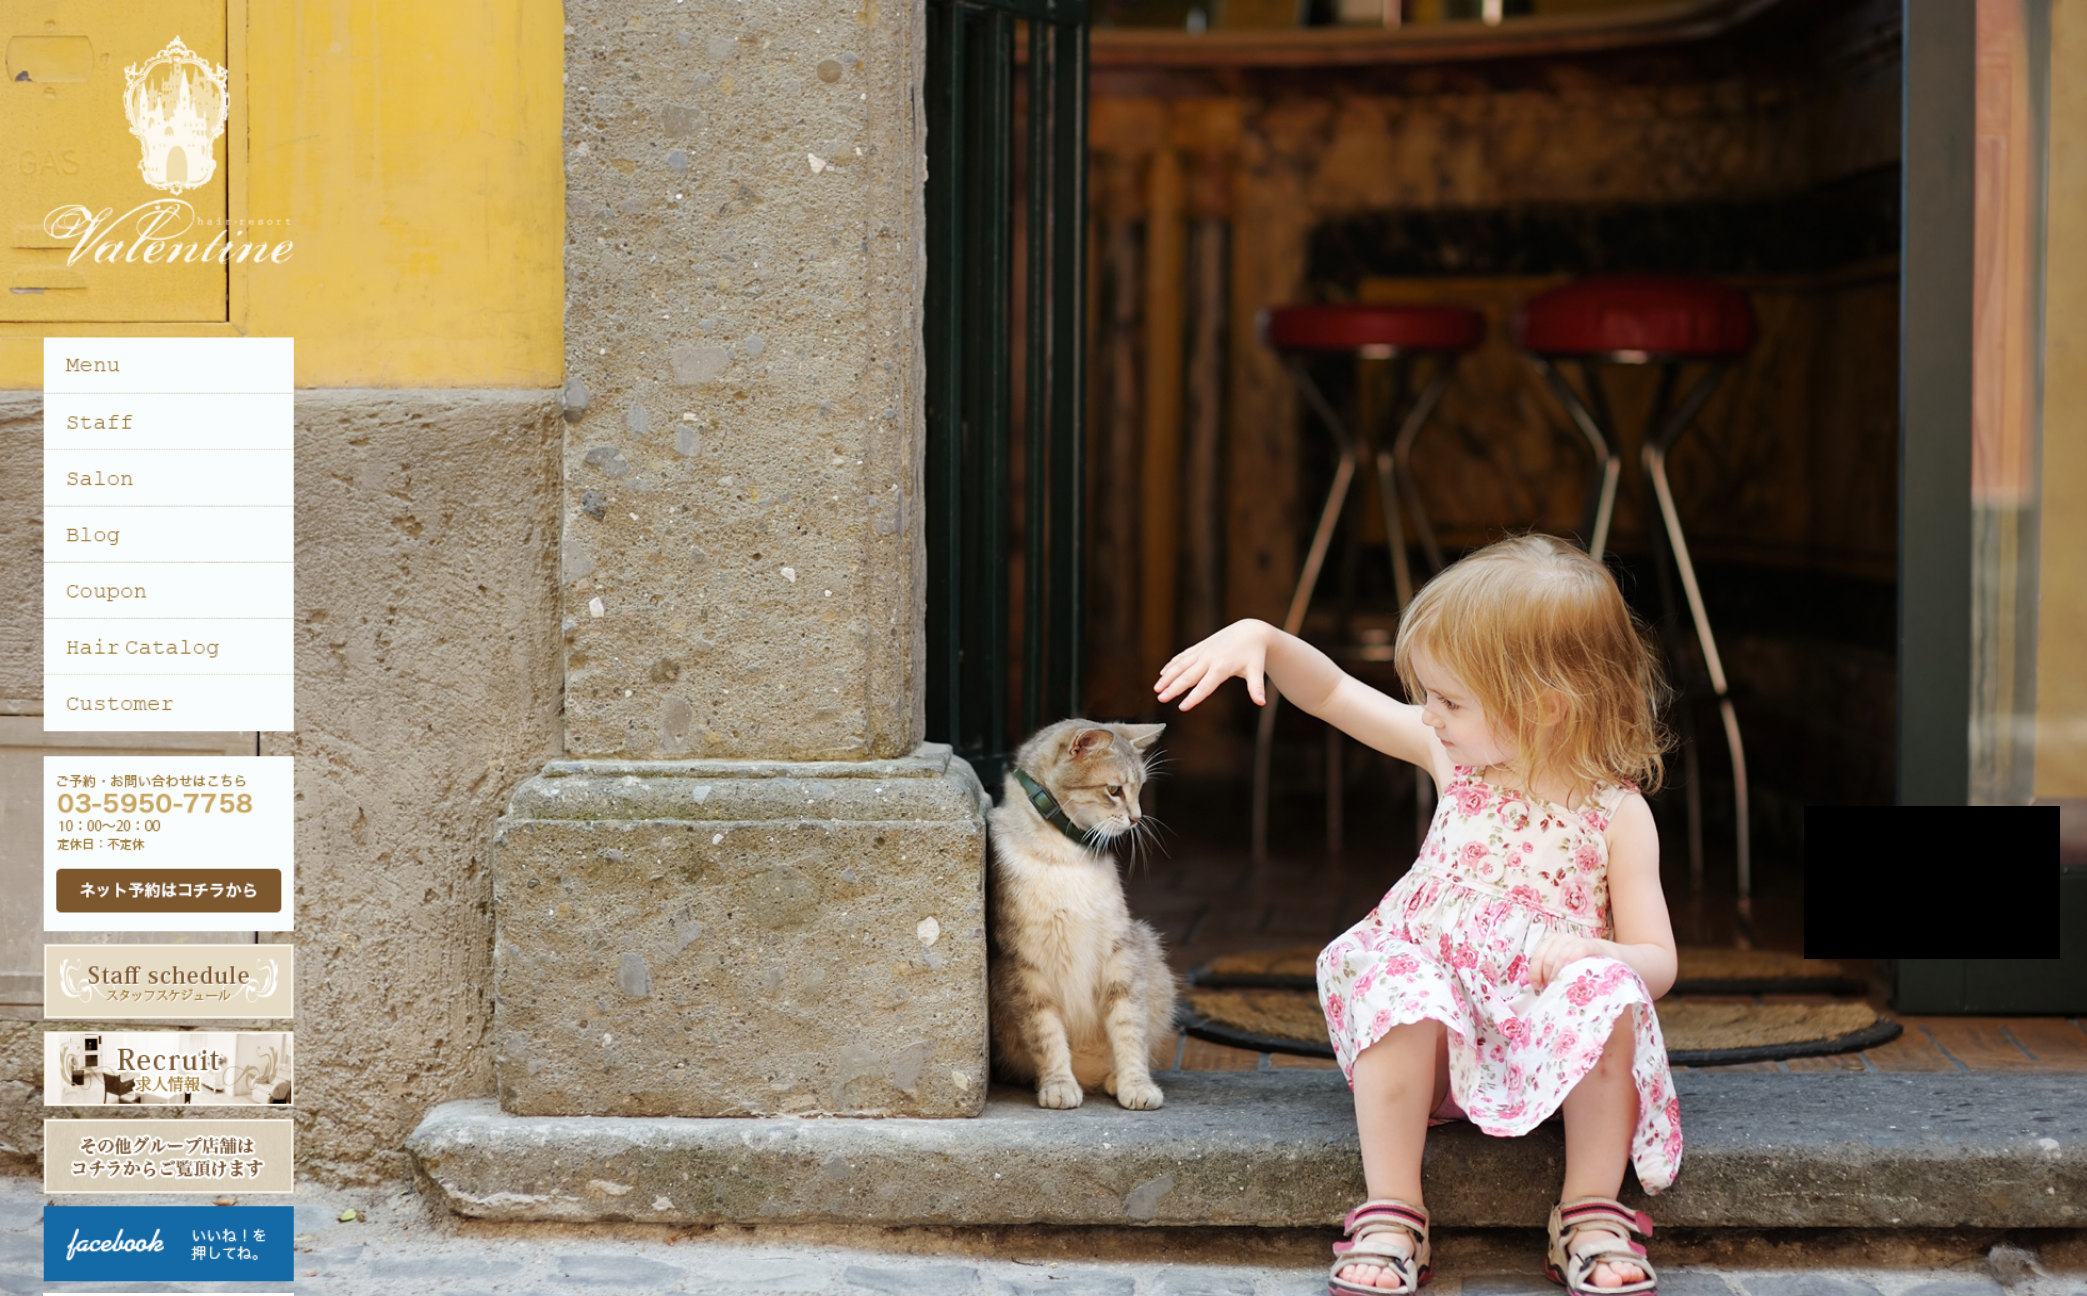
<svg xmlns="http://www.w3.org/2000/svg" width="2087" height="1296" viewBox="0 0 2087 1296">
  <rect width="100%" height="100%" fill="#fff"/>
  <image x="0" y="0" width="2087" height="1296" href="img/1.png"/>
  <image x="43" y="34" width="251" height="233" href="img/2.png"/>
  <image x="43" y="337" width="251" height="57" href="img/3.png"/>
  <image x="43" y="393" width="251" height="57" href="img/4.png"/>
  <image x="43" y="450" width="251" height="57" href="img/5.png"/>
  <image x="43" y="506" width="251" height="57" href="img/6.png"/>
  <image x="43" y="562" width="251" height="57" href="img/7.png"/>
  <image x="43" y="618" width="251" height="57" href="img/8.png"/>
  <image x="43" y="675" width="251" height="57" href="img/9.png"/>
  <image x="43" y="756" width="251" height="176" href="img/10.png"/>
  <image x="43" y="943" width="251" height="76" href="img/11.png"/>
  <image x="43" y="1031" width="251" height="76" href="img/12.png"/>
  <image x="43" y="1118" width="251" height="76" href="img/13.png"/>
  <image x="43" y="1206" width="251" height="76" href="img/14.png"/>
  <path d="M43 1293h251v3H43z" fill="#fff"/>
  <path d="M1804 806h256v153H1804z" fill="#000"/>
</svg>
